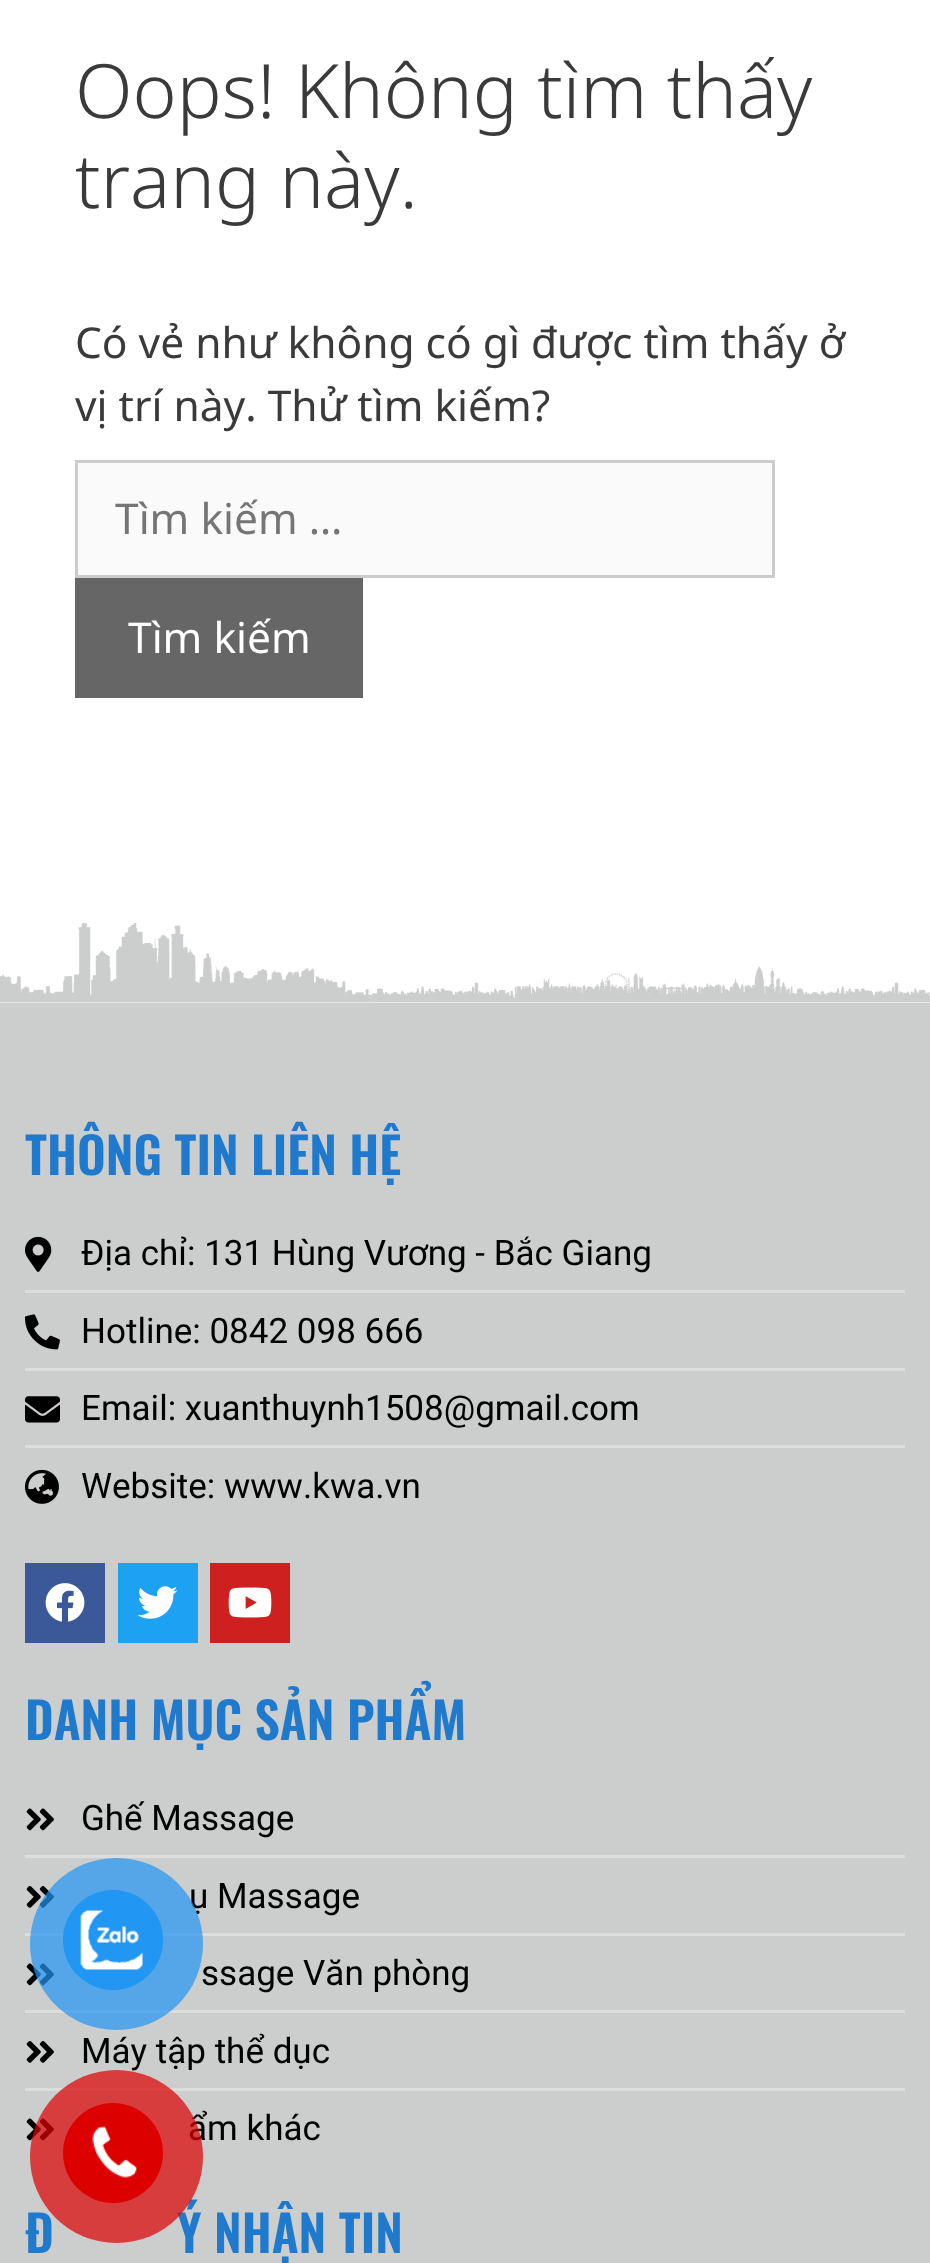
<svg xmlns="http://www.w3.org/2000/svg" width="930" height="2263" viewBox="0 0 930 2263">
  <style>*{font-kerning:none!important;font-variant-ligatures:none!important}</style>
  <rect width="100%" height="100%" fill="#fff"/>
  <path d="M76.5 461.5h697v115H76.5z" fill="#fafafa" stroke="#ccc" stroke-width="3"/>
  <path d="M75 578h288v120H75z" fill="#666"/>
  <image x="0" y="923" width="930" height="80" href="img/1.png"/>
  <path d="M0 1003h930v1260H0z" fill="#cccdcd"/>
  <image x="25" y="1236" width="27" height="36" href="img/2.png"/>
  <path d="M25 1290h880v3H25z" fill="#ddd"/>
  <image x="25" y="1314" width="35" height="36" href="img/3.png"/>
  <path d="M25 1368h880v3H25z" fill="#ddd"/>
  <image x="25" y="1396" width="35" height="27" href="img/4.png"/>
  <path d="M25 1445h880v3H25z" fill="#ddd"/>
  <image x="25" y="1469" width="34" height="35" href="img/5.png"/>
  <path d="M25 1563h80v80H25z" fill="#3b5998"/>
  <image x="45" y="1583" width="40" height="39" href="img/6.png"/>
  <path d="M118 1563h80v80H118z" fill="#1da1f2"/>
  <image x="137" y="1586" width="41" height="33" href="img/7.png"/>
  <path d="M210 1563h80v80H210z" fill="#cd201f"/>
  <image x="228" y="1587" width="44" height="31" href="img/8.png"/>
  <image x="26" y="1808" width="28" height="23" href="img/9.png"/>
  <path d="M25 1855h880v3H25z" fill="#ddd"/>
  <image x="26" y="1886" width="28" height="22" href="img/10.png"/>
  <path d="M25 1933h880v3H25z" fill="#ddd"/>
  <image x="26" y="1963" width="28" height="23" href="img/9.png"/>
  <path d="M25 2010h880v3H25z" fill="#ddd"/>
  <image x="26" y="2041" width="28" height="22" href="img/10.png"/>
  <path d="M25 2088h880v3H25z" fill="#ddd"/>
  <image x="26" y="2118" width="28" height="23" href="img/9.png"/>
  <g font-family="Noto Sans" font-size="75" font-weight="300" fill="#3a3a3a">
    <text x="75" y="118">Oops! Không tìm thấy</text>
    <text x="75" y="208">trang này.</text>
  </g>
  <g font-family="Noto Sans" font-size="42.5" fill="#3a3a3a">
    <text x="75" y="358">Có vẻ như không có gì được tìm thấy ở</text>
    <text x="75" y="421">vị trí này. Thử tìm kiếm?</text>
  </g>
  <text x="115" y="534" font-family="Noto Sans" font-size="42.5" fill="#757575">Tìm kiếm …</text>
  <text x="128" y="653" font-family="Noto Sans" font-size="42.5" fill="#fff">Tìm kiếm</text>
  <text x="25" y="1175" font-family="Oswald" font-size="50" font-weight="600" fill="#1f79cd">THÔNG TIN LIÊN HỆ</text>
  <g font-family="Roboto" font-size="35" fill="#000">
    <text x="81" y="1265">Địa chỉ: 131 Hùng Vương - Bắc Giang</text>
    <text x="81" y="1343">Hotline: 0842 098 666</text>
    <text x="81" y="1420">Email: xuanthuynh1508@gmail.com</text>
    <text x="81" y="1498">Website: www.kwa.vn</text>
  </g>
  <text x="25" y="1740" font-family="Oswald" font-size="50" font-weight="600" fill="#1f79cd">DANH MỤC SẢN PHẨM</text>
  <g font-family="Roboto" font-size="35" fill="#000">
    <text x="81" y="1830">Ghế Massage</text>
    <text x="189" y="1908">ụ Massage</text>
    <text x="201" y="1985">ssage Văn phòng</text>
    <text x="81" y="2063">Máy tập thể dục</text>
    <text x="188" y="2140">ẩm khác</text>
  </g>
  <g font-family="Oswald" font-size="50" font-weight="600" fill="#1f79cd">
    <text x="25" y="2253">Đ</text>
    <text x="177" y="2253">Ý NHẬN TIN</text>
  </g>
  <rect x="30" y="1858" width="173" height="172" rx="86" fill="#2196f3b3"/>
  <circle cx="113" cy="1940" r="50" fill="#2196f3"/>
  <image x="80" y="1910" width="63" height="60" href="img/11.png"/>
  <circle cx="116.5" cy="2156.5" r="86.5" fill="#dd0000b3"/>
  <circle cx="113" cy="2153" r="50" fill="#d00"/>
  <image x="92" y="2126" width="45" height="52" href="img/12.png"/>
</svg>
